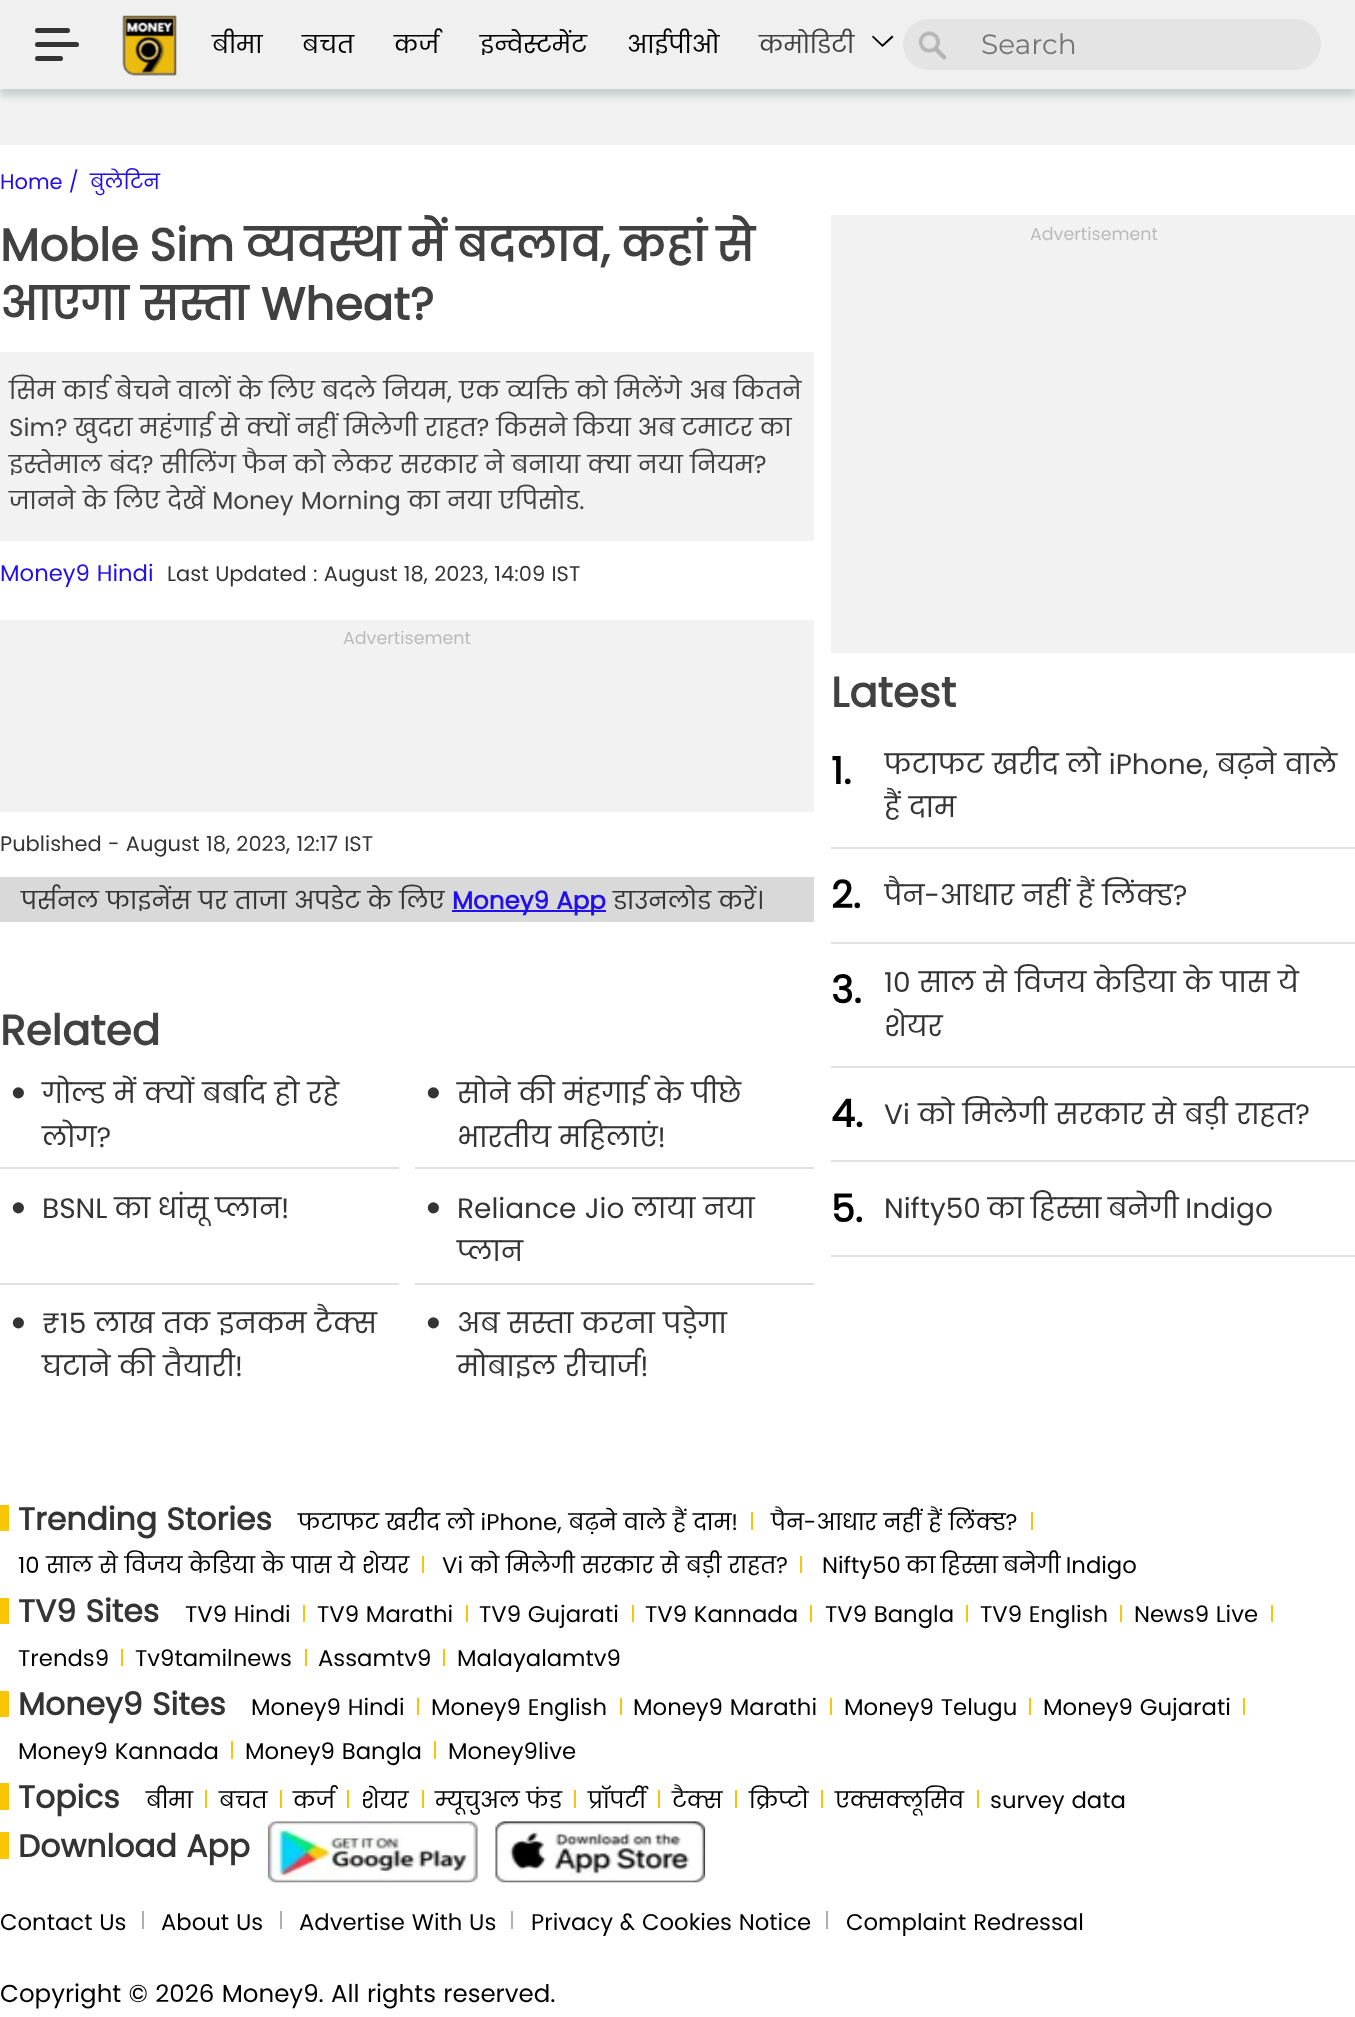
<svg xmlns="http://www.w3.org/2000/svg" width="1355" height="2017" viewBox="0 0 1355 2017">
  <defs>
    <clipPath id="clip1"><path d="M884 742h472v88H884z"/></clipPath>
    <clipPath id="clip2"><path d="M884 873h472v44H884z"/></clipPath>
    <clipPath id="clip3"><path d="M884 961h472v87H884z"/></clipPath>
  </defs>
  <rect width="100%" height="100%" fill="#fff"/>
  <path d="M0 89h1355v56H0z" fill="#f2f2f2"/>
  <path d="M0 7h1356v89H0z" fill="#c7cfcf" filter="blur(3.5px)"/>
  <path d="M0 0h1355v89H0z" fill="#f0f0f0"/>
  <rect x="35" y="28" width="35" height="5" rx="2.5" fill="#343434"/>
  <rect x="35" y="42" width="44" height="5" rx="2.5" fill="#343434"/>
  <rect x="35" y="56" width="28" height="5" rx="2.5" fill="#343434"/>
  <image x="122" y="15" width="55" height="61" href="img/1.png"/>
  <path d="M872 37L873 35.5L882.5 44.5L892 35.5L893.5 37L882.5 47Z" fill="#000" fill-rule="evenodd"/>
  <rect x="903" y="19" width="418" height="51" rx="25.5" fill="#e4e4e4"/>
  <image x="918" y="31" width="29" height="29" href="img/2.png"/>
  <path d="M0 352h814v189H0z" fill="#f2f2f2"/>
  <path d="M0 620h814v192H0z" fill="#f2f2f2"/>
  <path d="M0 877h814v45H0z" fill="#d9d9d9"/>
  <path d="M452 910h154v2H452z" fill="#220fec"/>
  <path d="M0 1167h399v2H0z" fill="#e1e1e1"/>
  <path d="M415 1167h399v2H415z" fill="#e1e1e1"/>
  <path d="M0 1283h399v2H0z" fill="#e1e1e1"/>
  <path d="M415 1283h399v2H415z" fill="#e1e1e1"/>
  <path d="M831 215h524v438H831z" fill="#f2f2f2"/>
  <path d="M831 847h524v2H831z" fill="#e1e1e1"/>
  <path d="M831 942h524v2H831z" fill="#e1e1e1"/>
  <path d="M831 1066h524v2H831z" fill="#e1e1e1"/>
  <path d="M831 1160h524v2H831z" fill="#e1e1e1"/>
  <path d="M831 1255h524v2H831z" fill="#e1e1e1"/>
  <path d="M0 1505h9v26H0z" fill="#f7c607"/>
  <path d="M751 1512h2v18H751z" fill="#f7c607"/>
  <path d="M1031 1512h2v18H1031z" fill="#f7c607"/>
  <path d="M422 1556h2v17H422z" fill="#f7c607"/>
  <path d="M800 1556h2v17H800z" fill="#f7c607"/>
  <path d="M0 1598h9v26H0z" fill="#f7c607"/>
  <path d="M303 1605h2v17H303z" fill="#f7c607"/>
  <path d="M466 1605h2v17H466z" fill="#f7c607"/>
  <path d="M632 1605h2v17H632z" fill="#f7c607"/>
  <path d="M810 1605h2v17H810z" fill="#f7c607"/>
  <path d="M966 1605h2v17H966z" fill="#f7c607"/>
  <path d="M1120 1605h2v17H1120z" fill="#f7c607"/>
  <path d="M1271 1605h2v17H1271z" fill="#f7c607"/>
  <path d="M121 1649h2v17H121z" fill="#f7c607"/>
  <path d="M305 1649h2v17H305z" fill="#f7c607"/>
  <path d="M443 1649h2v17H443z" fill="#f7c607"/>
  <path d="M0 1691h9v26H0z" fill="#f7c607"/>
  <path d="M417 1698h2v17H417z" fill="#f7c607"/>
  <path d="M620 1698h2v17H620z" fill="#f7c607"/>
  <path d="M830 1698h2v17H830z" fill="#f7c607"/>
  <path d="M1029 1698h2v17H1029z" fill="#f7c607"/>
  <path d="M1243 1698h2v17H1243z" fill="#f7c607"/>
  <path d="M231 1741h2v18H231z" fill="#f7c607"/>
  <path d="M434 1741h2v18H434z" fill="#f7c607"/>
  <path d="M0 1783h9v27H0z" fill="#f7c607"/>
  <path d="M205 1790h2v18H205z" fill="#f7c607"/>
  <path d="M280 1790h2v18H280z" fill="#f7c607"/>
  <path d="M347 1790h2v18H347z" fill="#f7c607"/>
  <path d="M422 1790h2v18H422z" fill="#f7c607"/>
  <path d="M574 1790h2v18H574z" fill="#f7c607"/>
  <path d="M658 1790h2v18H658z" fill="#f7c607"/>
  <path d="M735 1790h2v18H735z" fill="#f7c607"/>
  <path d="M821 1790h2v18H821z" fill="#f7c607"/>
  <path d="M977 1790h2v18H977z" fill="#f7c607"/>
  <path d="M0 1832h9v27H0z" fill="#f7c607"/>
  <image x="267" y="1821" width="211" height="62" href="img/3.png"/>
  <image x="495" y="1821" width="211" height="62" href="img/4.png"/>
  <path d="M142 1911h2v18H142z" fill="#afafaf"/>
  <path d="M280 1911h2v18H280z" fill="#afafaf"/>
  <path d="M511 1911h2v18H511z" fill="#afafaf"/>
  <path d="M826 1911h2v18H826z" fill="#afafaf"/>
  <g font-family="Poppins" font-size="24.5" fill="#000">
    <text x="212" y="53">बीमा</text>
    <text x="302" y="53">बचत</text>
    <text x="394" y="53">कर्ज</text>
    <text x="480" y="53">इन्वेस्टमेंट</text>
    <text x="627" y="53">आईपीओ</text>
  </g>
  <text x="759" y="53" font-family="Poppins" font-size="24.5" fill="#414141">कमोडिटी</text>
  <text x="981" y="54" font-family="Montserrat" font-size="28" fill="#757575">Search</text>
  <g font-family="Poppins" font-size="21" fill="#220fec">
    <text x="0" y="189">Home /</text>
    <text x="90" y="189">बुलेटिन</text>
  </g>
  <g font-family="Poppins" font-size="45.5" font-weight="bold" fill="#414141">
    <text x="0" y="261" word-spacing="-2.75">Moble Sim व्‍यवस्‍था में बदलाव, कहां से</text>
    <text x="0" y="320">आएगा सस्‍ता Wheat?</text>
  </g>
  <g font-family="Poppins" font-size="24.5" fill="#414141">
    <text x="9" y="399">सिम कार्ड बेचने वालों के लिए बदले नियम, एक व्‍यक्ति को मिलेंगे अब कितने</text>
    <text x="9" y="436" word-spacing="-0.5">Sim? खुदरा महंगाई से क्‍यों नहीं मिलेगी राहत? किसने किया अब टमाटर का</text>
    <text x="9" y="473">इस्‍तेमाल बंद? सीलिंग फैन को लेकर सरकार ने बनाया क्‍या नया नियम?</text>
    <text x="9" y="509">जानने के लिए देखें Money Morning का नया एपिसोड.</text>
  </g>
  <text x="0" y="581" font-family="Poppins" font-size="22.75" fill="#220fec">Money9 Hindi</text>
  <text x="167" y="581" font-family="Poppins" font-size="21" fill="#343434">Last Updated : August 18, 2023, 14:09 IST</text>
  <text x="343" y="644" font-family="Poppins" font-size="17.5" fill="#bbb">Advertisement</text>
  <text x="0" y="851" font-family="Poppins" font-size="21" fill="#343434">Published - August 18, 2023, 12:17 IST</text>
  <text x="21" y="909" font-family="Poppins" font-size="24.5" fill="#343434">पर्सनल फाइनेंस पर ताजा अपडेट के लिए</text>
  <text x="452" y="909" font-family="Poppins" font-size="24.5" font-weight="bold" fill="#220fec">Money9 App</text>
  <text x="613" y="909" font-family="Poppins" font-size="24.5" fill="#343434">डाउनलोड करें।</text>
  <text x="0" y="1045" font-family="Poppins" font-size="42" font-weight="bold" fill="#414141">Related</text>
  <text x="9" y="1108" font-family="Poppins" font-size="45.5" fill="#343434">•</text>
  <g font-family="Poppins" font-size="28" fill="#343434">
    <text x="42" y="1103">गोल्ड में क्यों बर्बाद हो रहे</text>
    <text x="42" y="1147">लोग?</text>
  </g>
  <text x="424" y="1108" font-family="Poppins" font-size="45.5" fill="#343434">•</text>
  <g font-family="Poppins" font-size="28" fill="#343434">
    <text x="457" y="1103">सोने की मंहगाई के पीछे</text>
    <text x="457" y="1147">भारतीय महिलाएं!</text>
  </g>
  <text x="9" y="1223" font-family="Poppins" font-size="45.5" fill="#343434">•</text>
  <text x="42" y="1218" word-spacing="-1.5" font-family="Poppins" font-size="28" fill="#343434">BSNL का धांसू प्लान!</text>
  <text x="424" y="1223" font-family="Poppins" font-size="45.5" fill="#343434">•</text>
  <g font-family="Poppins" font-size="28" fill="#343434">
    <text x="457" y="1218">Reliance Jio लाया नया</text>
    <text x="457" y="1261">प्लान</text>
  </g>
  <text x="9" y="1338" font-family="Poppins" font-size="45.5" fill="#343434">•</text>
  <g font-family="Poppins" font-size="28" fill="#343434">
    <text x="42" y="1333">₹15 लाख तक इनकम टैक्स</text>
    <text x="42" y="1376">घटाने की तैयारी!</text>
  </g>
  <text x="424" y="1338" font-family="Poppins" font-size="45.5" fill="#343434">•</text>
  <g font-family="Poppins" font-size="28" fill="#343434">
    <text x="457" y="1333">अब सस्ता करना पड़ेगा</text>
    <text x="457" y="1376">मोबाइल रीचार्ज!</text>
  </g>
  <text x="1030" y="240" font-family="Poppins" font-size="17.5" fill="#bbb">Advertisement</text>
  <text x="831" y="707" font-family="Poppins" font-size="42" font-weight="bold" fill="#414141">Latest</text>
  <text x="831" y="784" font-family="Poppins" font-size="38" font-weight="bold" fill="#000">1.</text>
  <g clip-path="url(#clip1)">
    <g font-family="Poppins" font-size="28" fill="#343434">
      <text x="884" y="774">फटाफट खरीद लो iPhone, बढ़ने वाले</text>
      <text x="884" y="817">हैं दाम</text>
    </g>
  </g>
  <text x="831" y="908" font-family="Poppins" font-size="38" font-weight="bold" fill="#000">2.</text>
  <g clip-path="url(#clip2)">
    <text x="884" y="905" font-family="Poppins" font-size="28" fill="#343434">पैन-आधार नहीं हैं लिंक्ड?</text>
  </g>
  <text x="831" y="1003" font-family="Poppins" font-size="38" font-weight="bold" fill="#000">3.</text>
  <text x="884" y="992" font-family="Poppins" font-size="28" fill="#343434">10 साल से व‍िजय केड‍िया के पास ये</text>
  <g clip-path="url(#clip3)">
    <text x="884" y="1036" font-family="Poppins" font-size="28" fill="#343434">शेयर</text>
  </g>
  <text x="831" y="1127" font-family="Poppins" font-size="38" font-weight="bold" fill="#000">4.</text>
  <text x="884" y="1124" font-family="Poppins" font-size="28" fill="#343434">Vi को मिलेगी सरकार से बड़ी राहत?</text>
  <text x="831" y="1222" font-family="Poppins" font-size="38" font-weight="bold" fill="#000">5.</text>
  <text x="884" y="1218" word-spacing="-1.5" font-family="Poppins" font-size="28" fill="#343434">Nifty50 का ह‍िस्‍सा बनेगी Indigo</text>
  <text x="18" y="1530" font-family="Poppins" font-size="31.5" font-weight="bold" fill="#343434">Trending Stories</text>
  <g font-family="Poppins" font-size="22.75" fill="#000">
    <text x="298" y="1530">फटाफट खरीद लो iPhone, बढ़ने वाले हैं दाम!</text>
    <text x="771" y="1530">पैन-आधार नहीं हैं लिंक्ड?</text>
    <text x="18" y="1573">10 साल से व‍िजय केड‍िया के पास ये शेयर</text>
    <text x="442" y="1573">Vi को मिलेगी सरकार से बड़ी राहत?</text>
    <text x="822" y="1573" word-spacing="-1.5">Nifty50 का ह‍िस्‍सा बनेगी Indigo</text>
  </g>
  <text x="18" y="1622" font-family="Poppins" font-size="31.5" font-weight="bold" fill="#343434">TV9 Sites</text>
  <g font-family="Poppins" font-size="22.75" fill="#000">
    <text x="185" y="1622">TV9 Hindi</text>
    <text x="317" y="1622">TV9 Marathi</text>
    <text x="479" y="1622">TV9 Gujarati</text>
    <text x="645" y="1622">TV9 Kannada</text>
    <text x="825" y="1622">TV9 Bangla</text>
    <text x="980" y="1622">TV9 English</text>
    <text x="1134" y="1622">News9 Live</text>
    <text x="18" y="1666">Trends9</text>
    <text x="135" y="1666">Tv9tamilnews</text>
    <text x="318" y="1666">Assamtv9</text>
    <text x="457" y="1666">Malayalamtv9</text>
  </g>
  <text x="18" y="1715" font-family="Poppins" font-size="31.5" font-weight="bold" fill="#343434">Money9 Sites</text>
  <g font-family="Poppins" font-size="22.75" fill="#000">
    <text x="251" y="1715">Money9 Hindi</text>
    <text x="431" y="1715">Money9 English</text>
    <text x="633" y="1715">Money9 Marathi</text>
    <text x="844" y="1715">Money9 Telugu</text>
    <text x="1043" y="1715">Money9 Gujarati</text>
    <text x="18" y="1759">Money9 Kannada</text>
    <text x="245" y="1759">Money9 Bangla</text>
    <text x="448" y="1759">Money9live</text>
  </g>
  <text x="18" y="1808" font-family="Poppins" font-size="31.5" font-weight="bold" fill="#343434">Topics</text>
  <g font-family="Poppins" font-size="22.75" fill="#000">
    <text x="146" y="1808">बीमा</text>
    <text x="219" y="1808">बचत</text>
    <text x="293" y="1808">कर्ज</text>
    <text x="361" y="1808">शेयर</text>
    <text x="435" y="1808">म्यूचुअल फंड</text>
    <text x="588" y="1808">प्रॉपर्टी</text>
    <text x="672" y="1808">टैक्स</text>
    <text x="749" y="1808">क्रिप्टो</text>
    <text x="835" y="1808">एक्सक्लूसिव</text>
    <text x="990" y="1808">survey data</text>
  </g>
  <text x="18" y="1857" font-family="Poppins" font-size="31.5" font-weight="bold" fill="#343434">Download App</text>
  <g font-family="Poppins" font-size="22.75" fill="#000">
    <text x="0" y="1930">Contact Us</text>
    <text x="161" y="1930">About Us</text>
    <text x="299" y="1930">Advertise With Us</text>
    <text x="531" y="1930">Privacy &amp; Cookies Notice</text>
    <text x="846" y="1930">Complaint Redressal</text>
  </g>
  <text x="0" y="2002" font-family="Poppins" font-size="24.5" fill="#000">Copyright © 2026 Money9. All rights reserved.</text>
</svg>
